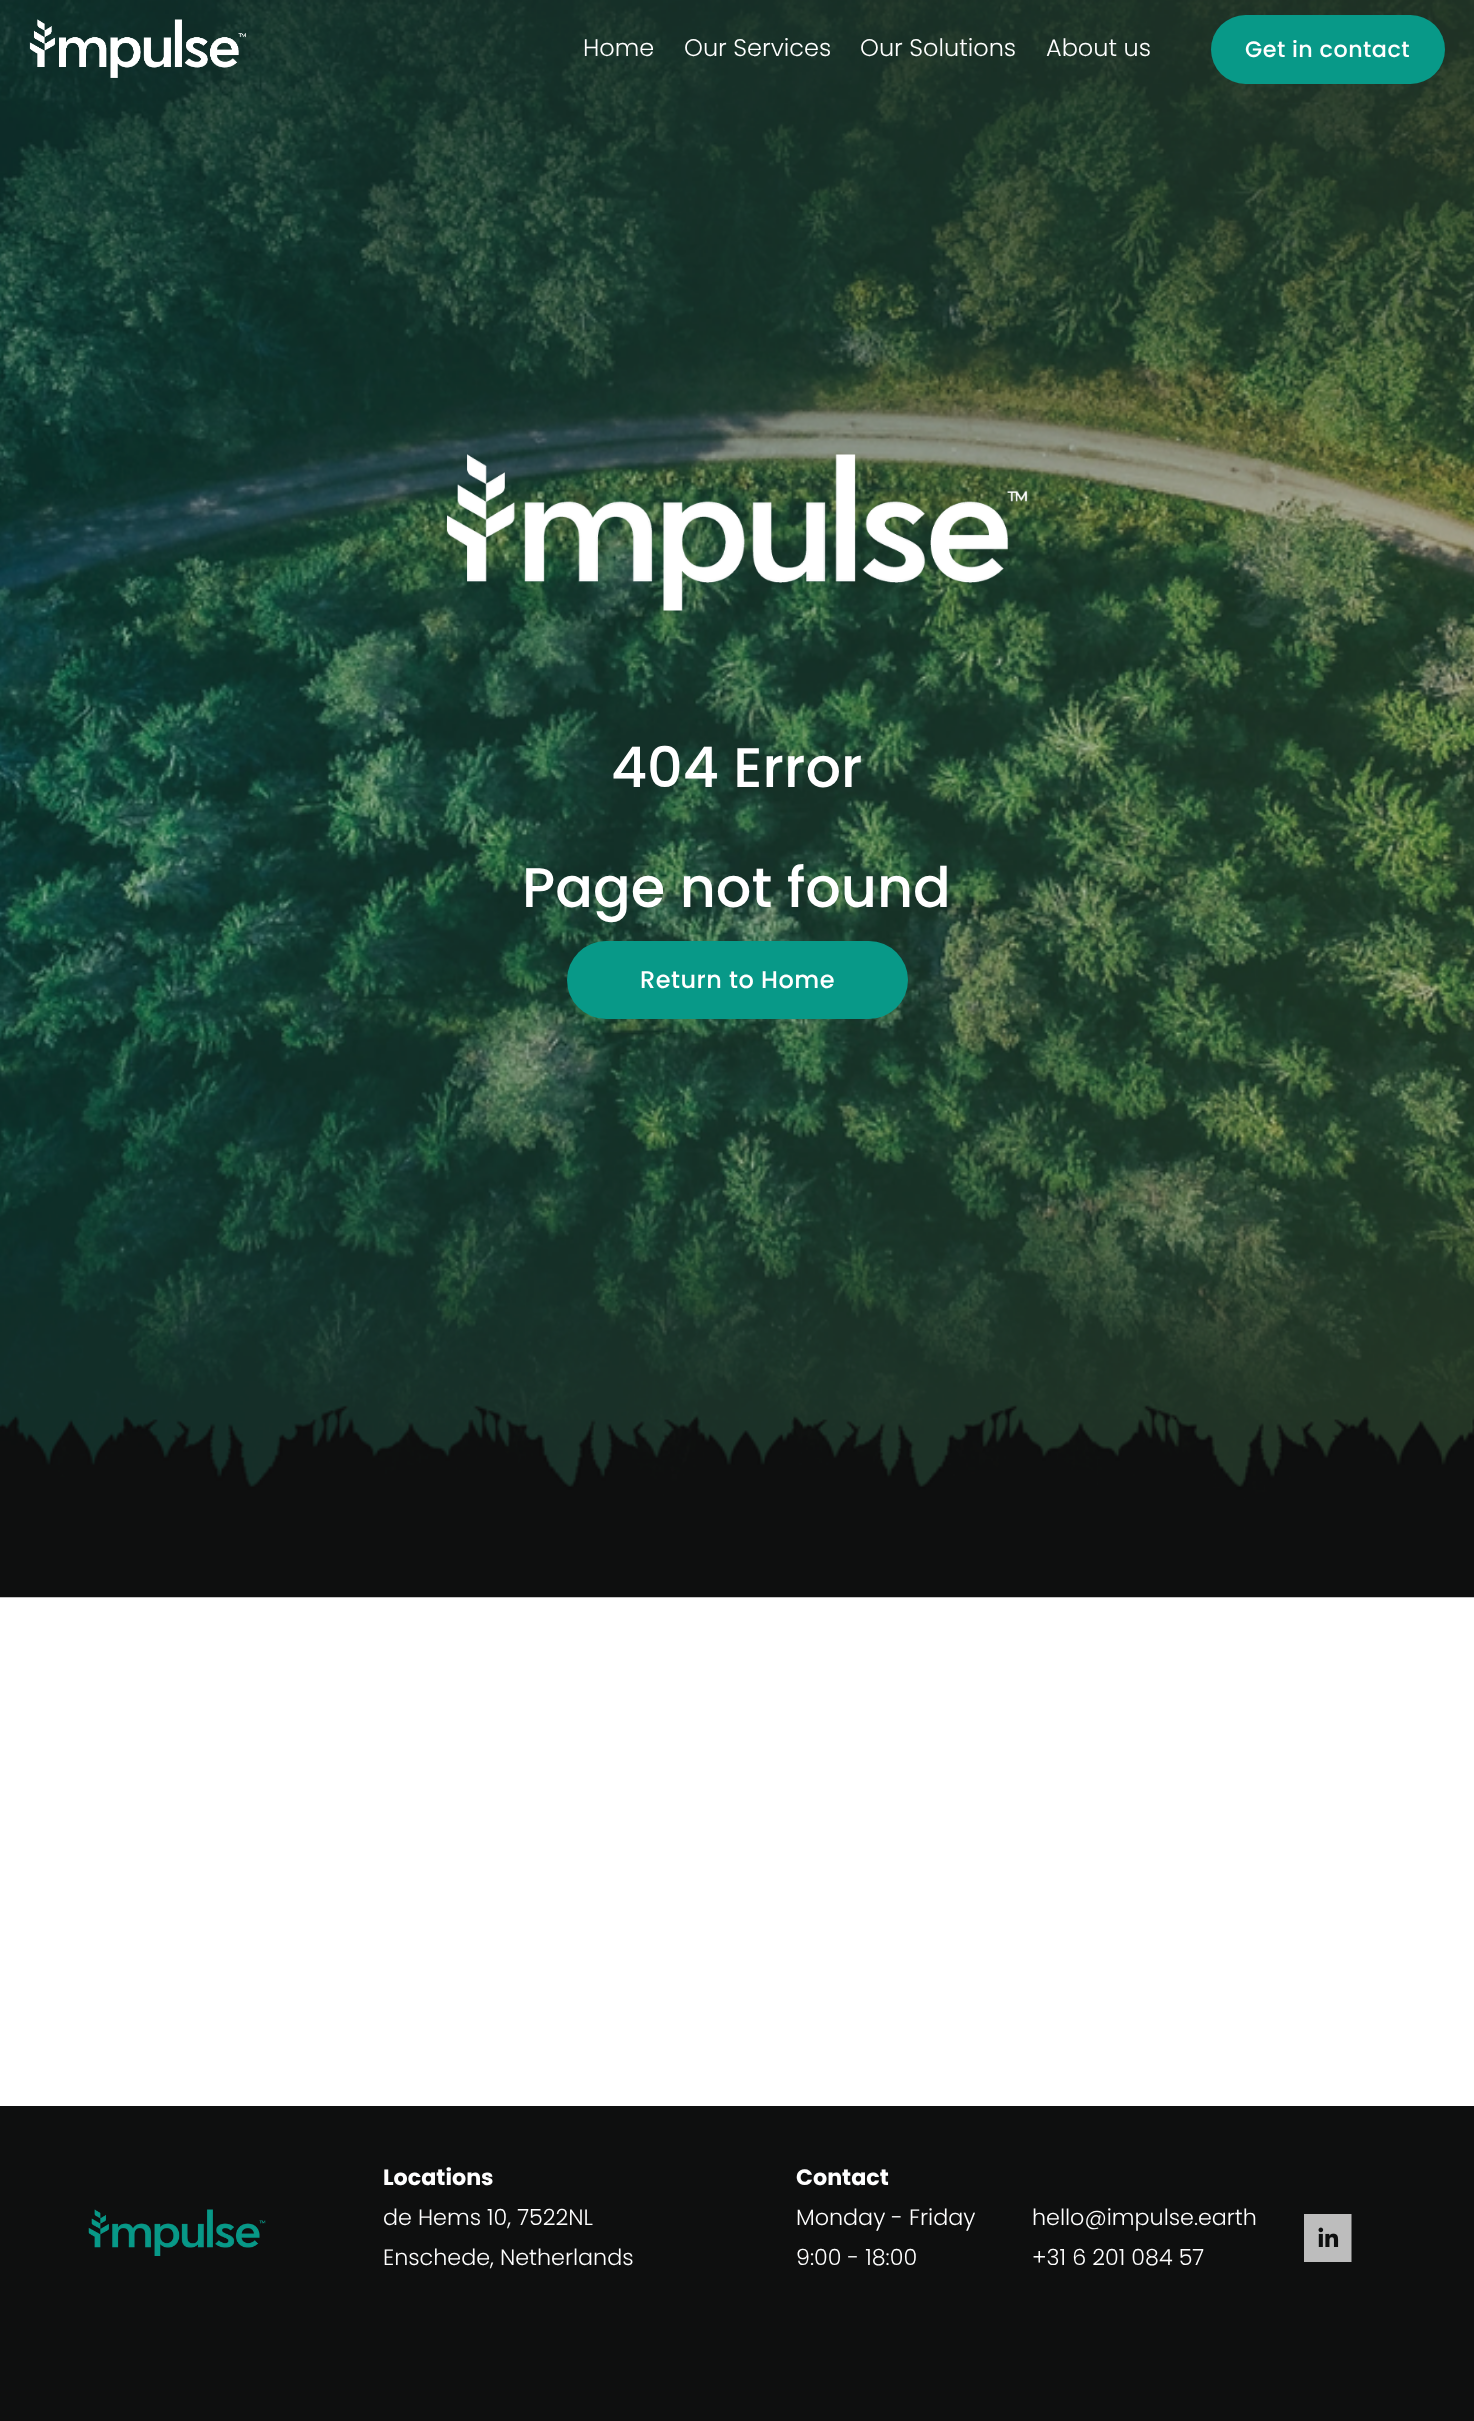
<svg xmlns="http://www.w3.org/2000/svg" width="1474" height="2421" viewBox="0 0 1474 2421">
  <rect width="100%" height="100%" fill="#fff"/>
  <image x="0" y="0" width="1474" height="1598" href="img/2.png"/>
  <image x="29" y="19" width="217" height="59" href="img/1.png"/>
  <rect x="1211" y="15" width="234" height="69" rx="34.5" fill="#089988"/>
  <image x="447" y="454" width="581" height="157" href="img/3.png"/>
  <rect x="567" y="941" width="341" height="78" rx="39" fill="#089988"/>
  <path d="M0 2106h1474v315H0z" fill="#0e0f0f"/>
  <image x="88" y="2209" width="178" height="47" href="img/4.png"/>
  <image x="1304" y="2214" width="48" height="48" href="img/5.png"/>
  <g font-family="Poppins" font-size="24" font-weight="300" fill="#fff">
    <text x="583" y="56">Home</text>
    <text x="684" y="56">Our Services</text>
    <text x="860" y="56">Our Solutions</text>
    <text x="1046" y="56">About us</text>
  </g>
  <text x="1245" y="57" font-family="Poppins" font-size="22.25" font-weight="500" letter-spacing="0.5" fill="#fff">Get in contact</text>
  <g font-family="Poppins" font-size="55.75" font-weight="500" fill="#fff">
    <text x="611" y="787">404 Error</text>
    <text x="522" y="907">Page not found</text>
  </g>
  <text x="640" y="988" font-family="Poppins" font-size="24" font-weight="500" letter-spacing="0.5" fill="#fff">Return to Home</text>
  <text x="383" y="2185" font-family="Poppins" font-size="22.25" font-weight="bold" fill="#fff">Locations</text>
  <g font-family="Poppins" font-size="22.25" font-weight="300" fill="#fff">
    <text x="383" y="2225">de Hems 10, 7522NL</text>
    <text x="383" y="2265">Enschede, Netherlands</text>
  </g>
  <text x="796" y="2185" font-family="Poppins" font-size="22.25" font-weight="bold" fill="#fff">Contact</text>
  <g font-family="Poppins" font-size="22.25" font-weight="300" fill="#fff">
    <text x="796" y="2225">Monday - Friday</text>
    <text x="796" y="2265">9:00 - 18:00</text>
    <text x="1032" y="2225">hello@impulse.earth</text>
    <text x="1032" y="2265">+31 6 201 084 57</text>
  </g>
</svg>
